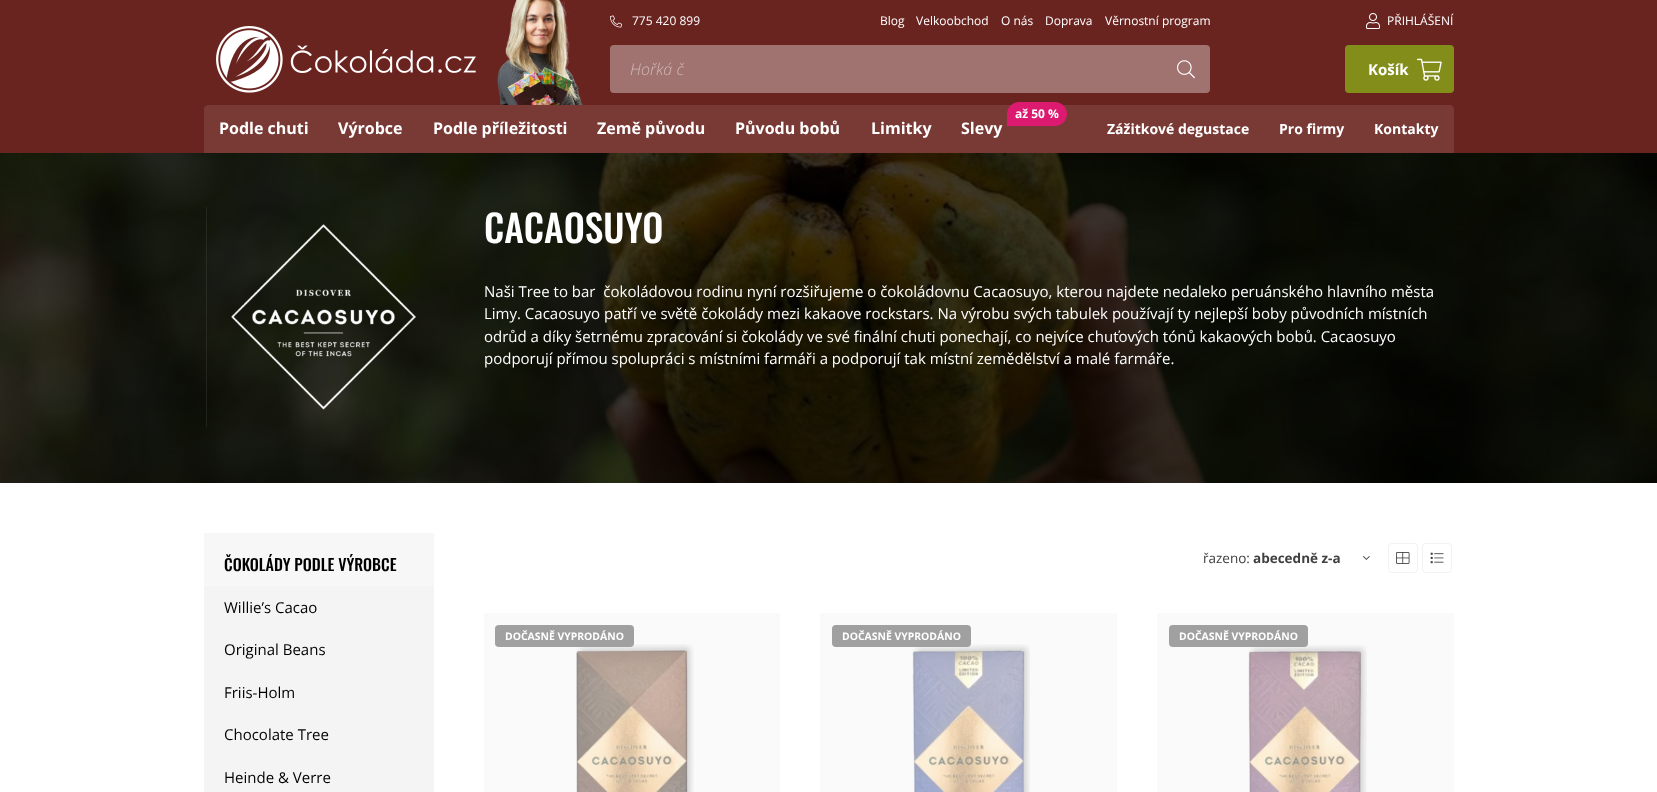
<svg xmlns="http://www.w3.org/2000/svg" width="1657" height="792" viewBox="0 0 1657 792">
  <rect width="100%" height="100%" fill="#fff"/>
  <path d="M0 0h1657v153H0z" fill="#6a2420"/>
  <image x="216" y="26" width="260" height="67" href="img/1.png"/>
  <image x="497" y="0" width="86" height="105" href="img/2.png"/>
  <image x="610" y="15" width="12" height="13" href="img/3.png"/>
  <rect x="610" y="45" width="600" height="48" rx="4" fill="#a07370"/>
  <image x="1177" y="60" width="18" height="19" href="img/4.png"/>
  <image x="1366" y="13" width="14" height="16" href="img/5.png"/>
  <rect x="1345" y="45" width="109" height="48" rx="4" fill="#838e1a"/>
  <image x="1417" y="58" width="25" height="23" href="img/6.png"/>
  <path d="M208 105H1450C1452 105 1454 107 1454 109V153H204V109C204 107 206 105 208 105Z" fill="#793a36"/>
  <path d="M1019 102H1055C1061.5 102 1067 107.5 1067 114C1067 120.5 1061.5 126 1055 126H1007V114C1007 107.5 1012.5 102 1019 102Z" fill="#db1a70"/>
  <image x="0" y="153" width="1657" height="330" href="img/7.png"/>
  <image x="206" y="207" width="210" height="220" href="img/8.png"/>
  <path d="M204 586h230v206H204z" fill="#f4f4f4"/>
  <path d="M204 533h230v53H204z" fill="#f7f7f7"/>
  <image x="1363" y="556" width="7" height="4" href="img/9.png"/>
  <rect x="1388.5" y="543.5" width="29" height="29" rx="3.5" fill="none" stroke="#f2f2f2"/>
  <image x="1396" y="552" width="14" height="12" href="img/10.png"/>
  <rect x="1422.5" y="543.5" width="29" height="29" rx="3.5" fill="none" stroke="#f2f2f2"/>
  <image x="1430" y="552" width="14" height="12" href="img/11.png"/>
  <path d="M484 613h296v179H484z" fill="#fafafa"/>
  <image x="576" y="644" width="118" height="148" href="img/12.png"/>
  <rect x="495" y="625" width="139" height="22" rx="4" fill="#a0a0a0"/>
  <path d="M820 613h297v179H820z" fill="#fafafa"/>
  <image x="912" y="644" width="118" height="148" href="img/13.png"/>
  <rect x="832" y="625" width="139" height="22" rx="4" fill="#a0a0a0"/>
  <path d="M1157 613h297v179H1157z" fill="#fafafa"/>
  <image x="1248" y="645" width="119" height="147" href="img/14.png"/>
  <rect x="1169" y="625" width="139" height="22" rx="4" fill="#a0a0a0"/>
  <g font-family="Open Sans" font-size="12" fill="#fff">
    <text x="632" y="25">775 420 899</text>
    <text x="880" y="25">Blog</text>
    <text x="916" y="25">Velkoobchod</text>
    <text x="1001" y="25">O nás</text>
    <text x="1045" y="25">Doprava</text>
    <text x="1105" y="25">Věrnostní program</text>
  </g>
  <text x="630" y="75" font-family="Open Sans" font-size="16" font-weight="300" font-style="italic" fill="#d0b9b8">Hořká č</text>
  <text x="1387" y="25" font-family="Open Sans" font-size="12" fill="#fff">PŘIHLÁŠENÍ</text>
  <text x="1368" y="75" font-family="Open Sans" font-size="15" font-weight="bold" fill="#fff">Košík</text>
  <g font-family="Open Sans" font-size="16" font-weight="bold" fill="#fff">
    <text x="219" y="134">Podle chuti</text>
    <text x="338" y="134">Výrobce</text>
    <text x="433" y="134">Podle příležitosti</text>
    <text x="597" y="134">Země původu</text>
    <text x="735" y="134">Původu bobů</text>
    <text x="871" y="134">Limitky</text>
  </g>
  <text x="1015" y="118" font-family="Open Sans" font-size="12" font-weight="bold" fill="#fff">až 50 %</text>
  <text x="961" y="134" font-family="Open Sans" font-size="16" font-weight="bold" fill="#fff">Slevy</text>
  <g font-family="Open Sans" font-size="14" font-weight="bold" fill="#fff">
    <text x="1107" y="134">Zážitkové degustace</text>
    <text x="1279" y="134">Pro firmy</text>
    <text x="1374" y="134">Kontakty</text>
  </g>
  <text x="484" y="243" font-family="Oswald" font-size="37.5" font-weight="500" fill="#fff">CACAOSUYO</text>
  <g font-family="Open Sans" font-size="15" fill="#fff">
    <text x="484" y="297" xml:space="preserve">Naši Tree to bar  čokoládovou rodinu nyní rozšiřujeme o čokoládovnu Cacaosuyo, kterou najdete nedaleko peruánského hlavního města</text>
    <text x="484" y="319">Limy. Cacaosuyo patří ve světě čokolády mezi kakaove rockstars. Na výrobu svých tabulek používají ty nejlepší boby původních místních</text>
    <text x="484" y="342">odrůd a díky šetrnému zpracování si čokolády ve své finální chuti ponechají, co nejvíce chuťových tónů kakaových bobů. Cacaosuyo</text>
    <text x="484" y="364">podporují přímou spolupráci s místními farmáři a podporují tak místní zemědělství a malé farmáře.</text>
  </g>
  <text x="224" y="571" font-family="Oswald" font-size="16" font-weight="500" fill="#000">ČOKOLÁDY PODLE VÝROBCE</text>
  <g font-family="Open Sans" font-size="15" fill="#000">
    <text x="224" y="613">Willie’s Cacao</text>
    <text x="224" y="655">Original Beans</text>
    <text x="224" y="698">Friis-Holm</text>
    <text x="224" y="740">Chocolate Tree</text>
    <text x="224" y="783">Heinde &amp; Verre</text>
  </g>
  <text x="1203" y="563" font-family="Open Sans" font-size="13.5" fill="#404040">řazeno:</text>
  <text x="1253" y="563" font-family="Open Sans" font-size="13.5" font-weight="bold" fill="#404040">abecedně z-a</text>
  <g font-family="Open Sans" font-size="10.4" font-weight="bold" fill="#fff">
    <text x="505" y="640">DOČASNĚ VYPRODÁNO</text>
    <text x="842" y="640">DOČASNĚ VYPRODÁNO</text>
    <text x="1179" y="640">DOČASNĚ VYPRODÁNO</text>
  </g>
</svg>
